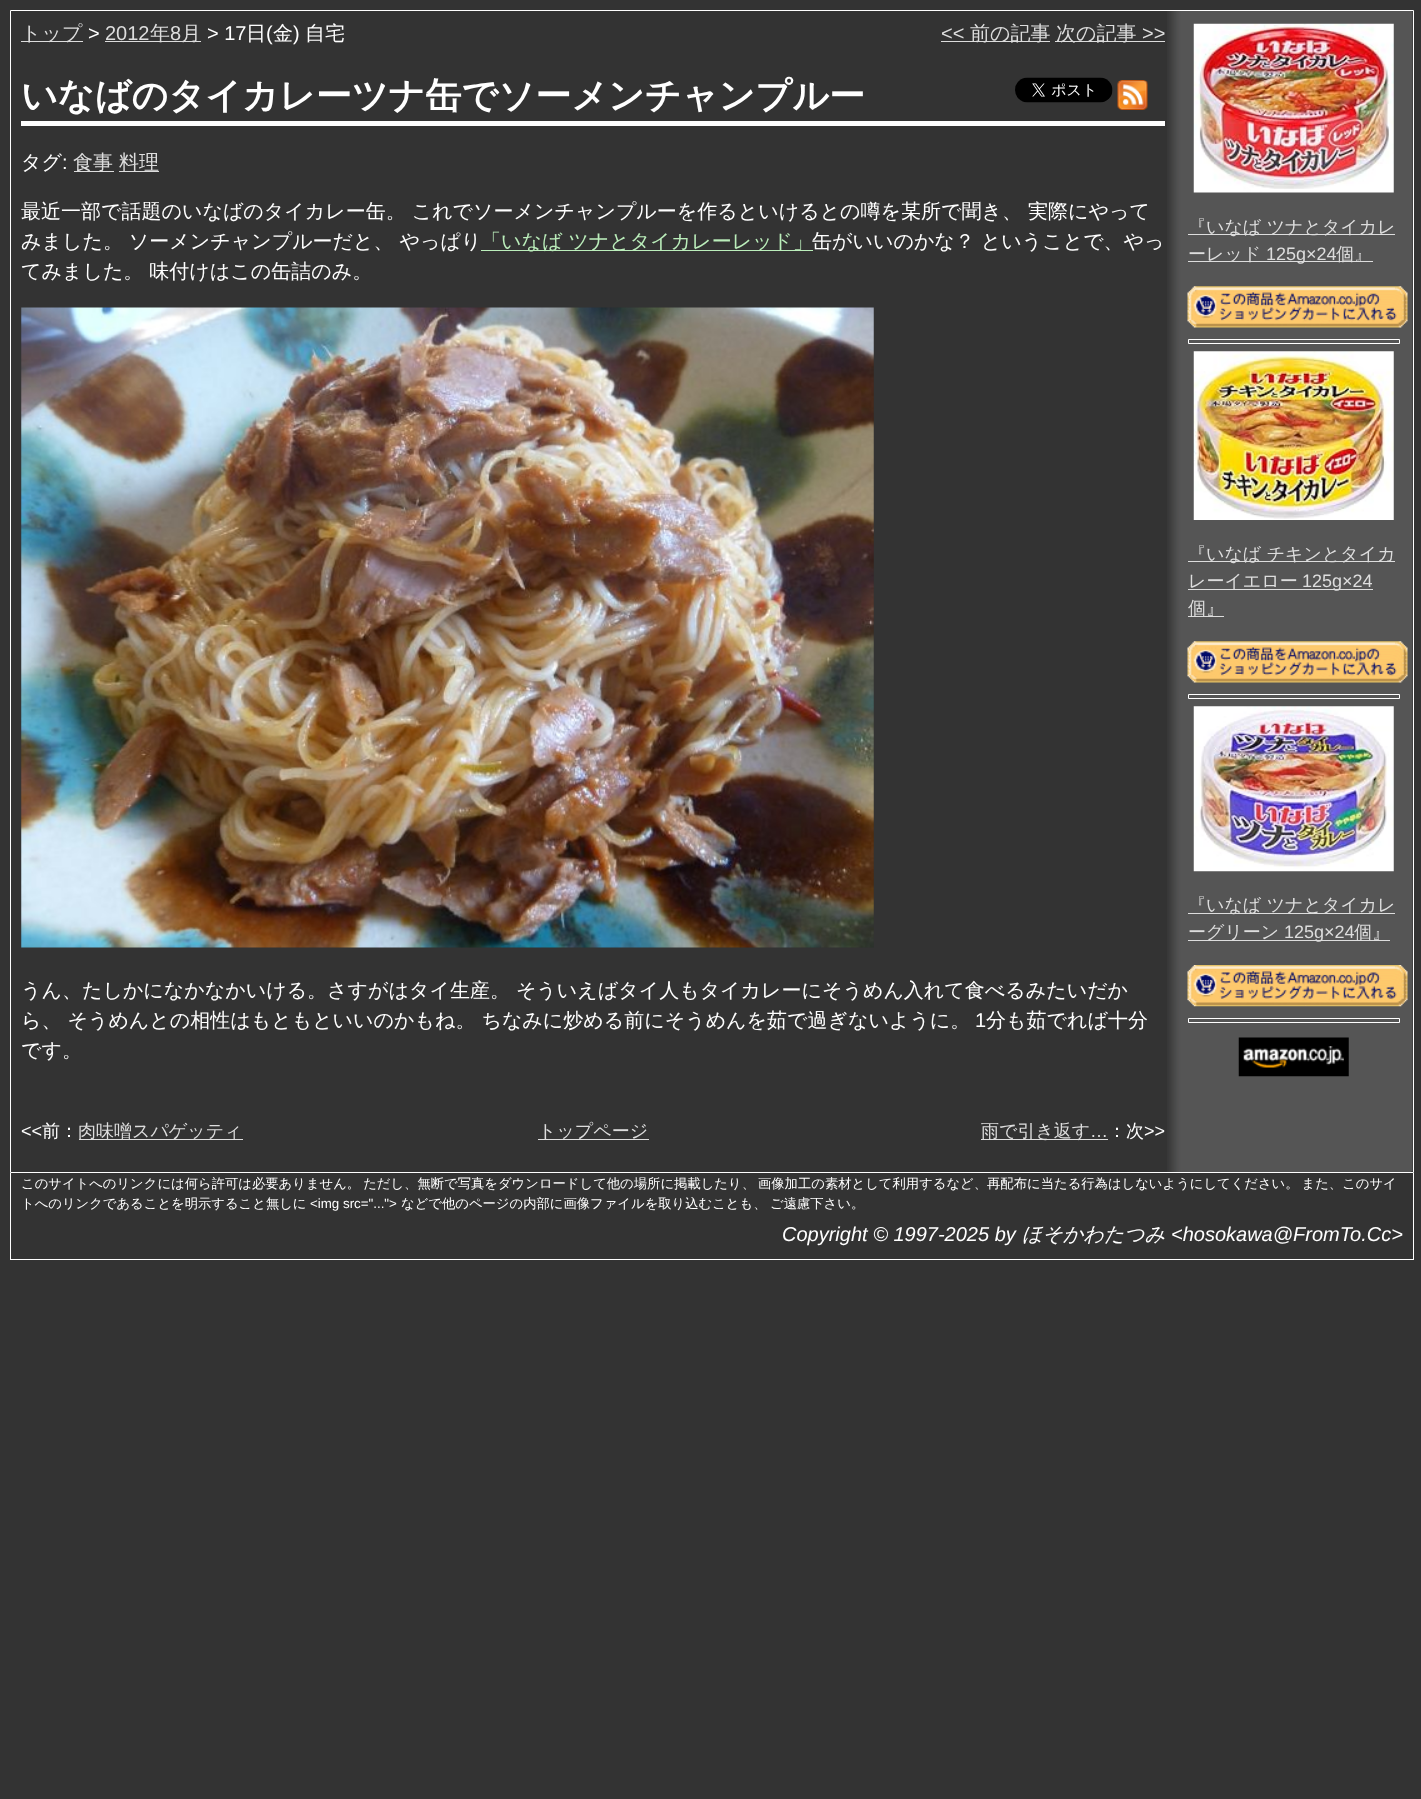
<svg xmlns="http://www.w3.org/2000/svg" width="1421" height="1799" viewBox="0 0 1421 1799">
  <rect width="100%" height="100%" fill="#333"/>
  <image x="1167" y="11" width="245" height="1161" href="img/1.png"/>
  <path d="M10.5 10.5h1403v1162H10.5z" fill="none" stroke="#fff"/>
  <image x="1411" y="11" width="2" height="1161" href="img/2.png"/>
  <path d="M21 41h62v1H21z" fill="#ddd"/>
  <path d="M105 41h96v1H105z" fill="#ddd"/>
  <path d="M941 41h109v1H941z" fill="#ddd"/>
  <path d="M1055 41h110v1H1055z" fill="#ddd"/>
  <path d="M21 121h1144v5H21z" fill="#fff"/>
  <image x="1015" y="77" width="98" height="26" href="img/3.png"/>
  <image x="1117" y="80" width="31" height="30" href="img/4.png"/>
  <path d="M74 171h40v1H74z" fill="#ddd"/>
  <path d="M119 171h40v1H119z" fill="#ddd"/>
  <path d="M481 250h332v1H481z" fill="#beb"/>
  <image x="21" y="307" width="853" height="641" href="img/5.png"/>
  <path d="M79 1139h164v1H79z" fill="#ddd"/>
  <path d="M538 1139h111v1H538z" fill="#ddd"/>
  <path d="M981 1139h127v1H981z" fill="#ddd"/>
  <image x="1193" y="23" width="201" height="170" href="img/6.png"/>
  <path d="M1188 234h207v1H1188z" fill="#ddd"/>
  <path d="M1188 261h185v1H1188z" fill="#ddd"/>
  <image x="1187" y="286" width="221" height="42" href="img/7.png"/>
  <path d="M1188.5 339.5h211v4H1188.5z" fill="none" stroke="#fff"/>
  <image x="1193" y="351" width="201" height="169" href="img/8.png"/>
  <path d="M1188 561h207v1H1188z" fill="#ddd"/>
  <path d="M1188 589h185v1H1188z" fill="#ddd"/>
  <path d="M1188 616h36v1H1188z" fill="#ddd"/>
  <image x="1187" y="641" width="221" height="42" href="img/9.png"/>
  <path d="M1188.5 694.5h211v4H1188.5z" fill="none" stroke="#fff"/>
  <image x="1193" y="706" width="201" height="166" href="img/10.png"/>
  <path d="M1188 913h207v1H1188z" fill="#ddd"/>
  <path d="M1188 940h202v1H1188z" fill="#ddd"/>
  <image x="1187" y="965" width="221" height="42" href="img/11.png"/>
  <path d="M1188.5 1018.5h211v4H1188.5z" fill="none" stroke="#fff"/>
  <image x="1238" y="1037" width="111" height="40" href="img/12.png"/>
  <path d="M1413 1173h1v87H1413z" fill="#fff"/>
  <path d="M10 1259h1404v1H10z" fill="#fff"/>
  <path d="M10 1173h1v87H10z" fill="#fff"/>
  <text x="21" y="40" font-family="WenQuanYi Zen Hei" font-size="20" font-weight="500" fill="#ddd">トップ</text>
  <text x="88" y="40" font-family="Liberation Sans" font-size="20" fill="#fff">&gt;</text>
  <text x="105" y="40" font-family="Liberation Sans" font-size="20" fill="#ddd">2012</text>
  <text x="150" y="40" font-family="WenQuanYi Zen Hei" font-size="20" font-weight="500" fill="#ddd">年</text>
  <text x="170" y="40" font-family="Liberation Sans" font-size="20" fill="#ddd">8</text>
  <text x="181" y="40" font-family="WenQuanYi Zen Hei" font-size="20" font-weight="500" fill="#ddd">月</text>
  <text x="207" y="40" font-family="Liberation Sans" font-size="20" fill="#fff">&gt; 17</text>
  <text x="246" y="40" font-family="WenQuanYi Zen Hei" font-size="20" font-weight="500" fill="#fff">日</text>
  <text x="266" y="40" font-family="Liberation Sans" font-size="20" fill="#fff">(</text>
  <text x="273" y="40" font-family="WenQuanYi Zen Hei" font-size="20" font-weight="500" fill="#fff">金</text>
  <text x="293" y="40" font-family="Liberation Sans" font-size="20" fill="#fff">)</text>
  <text x="305" y="40" font-family="WenQuanYi Zen Hei" font-size="20" font-weight="500" fill="#fff">自宅</text>
  <text x="941" y="40" font-family="Liberation Sans" font-size="20" fill="#ddd">&lt;&lt;</text>
  <g font-family="WenQuanYi Zen Hei" font-size="20" font-weight="500" fill="#ddd">
    <text x="970" y="40">前の記事</text>
    <text x="1056" y="40">次の記事</text>
  </g>
  <text x="1142" y="40" font-family="Liberation Sans" font-size="20" fill="#ddd">&gt;&gt;</text>
  <text x="21" y="108" font-family="WenQuanYi Zen Hei" font-size="36" font-weight="bold" fill="#fff">いなばのタイカレーツナ缶でソーメンチャンプルー</text>
  <text x="21" y="169" font-family="WenQuanYi Zen Hei" font-size="20" font-weight="500" fill="#fff">タグ</text>
  <text x="62" y="169" font-family="Liberation Sans" font-size="20" fill="#fff">:</text>
  <g font-family="WenQuanYi Zen Hei" font-size="20" font-weight="500" fill="#ddd">
    <text x="73" y="169">食事</text>
    <text x="119" y="169">料理</text>
  </g>
  <g font-family="WenQuanYi Zen Hei" font-size="20" font-weight="500" fill="#fff">
    <text x="21" y="218">最近一部で話題のいなばのタイカレー缶。 これでソーメンチャンプルーを作るといけるとの噂を某所で聞き、 実際にやって</text>
    <text x="21" y="248">みました。 ソーメンチャンプルーだと、 やっぱり</text>
  </g>
  <text x="481" y="248" font-family="WenQuanYi Zen Hei" font-size="20" font-weight="500" fill="#beb">「いなば ツナとタイカレーレッド」</text>
  <g font-family="WenQuanYi Zen Hei" font-size="20" font-weight="500" fill="#fff">
    <text x="812" y="248">缶がいいのかな？ ということで、やっ</text>
    <text x="21" y="278">てみました。 味付けはこの缶詰のみ。</text>
    <text x="21" y="997">うん、たしかになかなかいける。さすがはタイ生産。 そういえばタイ人もタイカレーにそうめん入れて食べるみたいだか</text>
    <text x="21" y="1027">ら、 そうめんとの相性はもともといいのかもね。 ちなみに炒める前にそうめんを茹で過ぎないように。</text>
  </g>
  <text x="975" y="1027" font-family="Liberation Sans" font-size="20" fill="#fff">1</text>
  <g font-family="WenQuanYi Zen Hei" font-size="20" font-weight="500" fill="#fff">
    <text x="986" y="1027">分も茹でれば十分</text>
    <text x="21" y="1057">です。</text>
  </g>
  <text x="21" y="1137" font-family="Liberation Sans" font-size="18" fill="#fff">&lt;&lt;</text>
  <text x="42" y="1137" font-family="WenQuanYi Zen Hei" font-size="18" font-weight="500" fill="#fff">前：</text>
  <g font-family="WenQuanYi Zen Hei" font-size="18" font-weight="500" fill="#ddd">
    <text x="78" y="1137">肉味噌スパゲッティ</text>
    <text x="538" y="1137">トップページ</text>
    <text x="981" y="1137">雨で引き返す</text>
  </g>
  <text x="1090" y="1137" font-family="Liberation Sans" font-size="18" fill="#ddd">…</text>
  <text x="1108" y="1137" font-family="WenQuanYi Zen Hei" font-size="18" font-weight="500" fill="#fff">：次</text>
  <text x="1144" y="1137" font-family="Liberation Sans" font-size="18" fill="#fff">&gt;&gt;</text>
  <g font-family="WenQuanYi Zen Hei" font-size="18" font-weight="500" fill="#ddd">
    <text x="1188" y="233">『いなば ツナとタイカレ</text>
    <text x="1188" y="260">ーレッド</text>
  </g>
  <text x="1266" y="260" font-family="Liberation Sans" font-size="18" fill="#ddd">125g×24</text>
  <g font-family="WenQuanYi Zen Hei" font-size="18" font-weight="500" fill="#ddd">
    <text x="1336" y="260">個』</text>
    <text x="1188" y="560">『いなば チキンとタイカ</text>
    <text x="1188" y="587">レーイエロー</text>
  </g>
  <text x="1302" y="587" font-family="Liberation Sans" font-size="18" fill="#ddd">125g×24</text>
  <g font-family="WenQuanYi Zen Hei" font-size="18" font-weight="500" fill="#ddd">
    <text x="1188" y="614">個』</text>
    <text x="1188" y="911">『いなば ツナとタイカレ</text>
    <text x="1188" y="938">ーグリーン</text>
  </g>
  <text x="1284" y="938" font-family="Liberation Sans" font-size="18" fill="#ddd">125g×24</text>
  <text x="1354" y="938" font-family="WenQuanYi Zen Hei" font-size="18" font-weight="500" fill="#ddd">個』</text>
  <g font-family="WenQuanYi Zen Hei" font-size="13.33" font-weight="500" fill="#fff">
    <text x="21" y="1188" word-spacing="-1">このサイトへのリンクには何ら許可は必要ありません。 ただし、無断で写真をダウンロードして他の場所に掲載したり、 画像加工の素材として利用するなど、再配布に当たる行為はしないようにしてください。 また、このサイ</text>
    <text x="21" y="1208">トへのリンクであることを明示すること無しに</text>
  </g>
  <text x="310" y="1208" font-family="Liberation Sans" font-size="13.33" fill="#fff">&lt;img src="..."&gt;</text>
  <g font-family="WenQuanYi Zen Hei" font-size="13.33" font-weight="500" fill="#fff">
    <text x="401" y="1208">などで他のページの内部に画像ファイルを取り込むことも、</text>
    <text x="770" y="1208">ご遠慮下さい。</text>
  </g>
  <text x="782" y="1241" font-family="Liberation Sans" font-size="20" font-style="italic" fill="#fff">Copyright © 1997-2025 by</text>
  <text x="1022" y="1241" font-family="WenQuanYi Zen Hei" font-size="20" font-weight="500" font-style="italic" fill="#fff">ほそかわたつみ</text>
  <text x="1171" y="1241" font-family="Liberation Sans" font-size="20" font-style="italic" fill="#fff">&lt;hosokawa@FromTo.Cc&gt;</text>
</svg>
